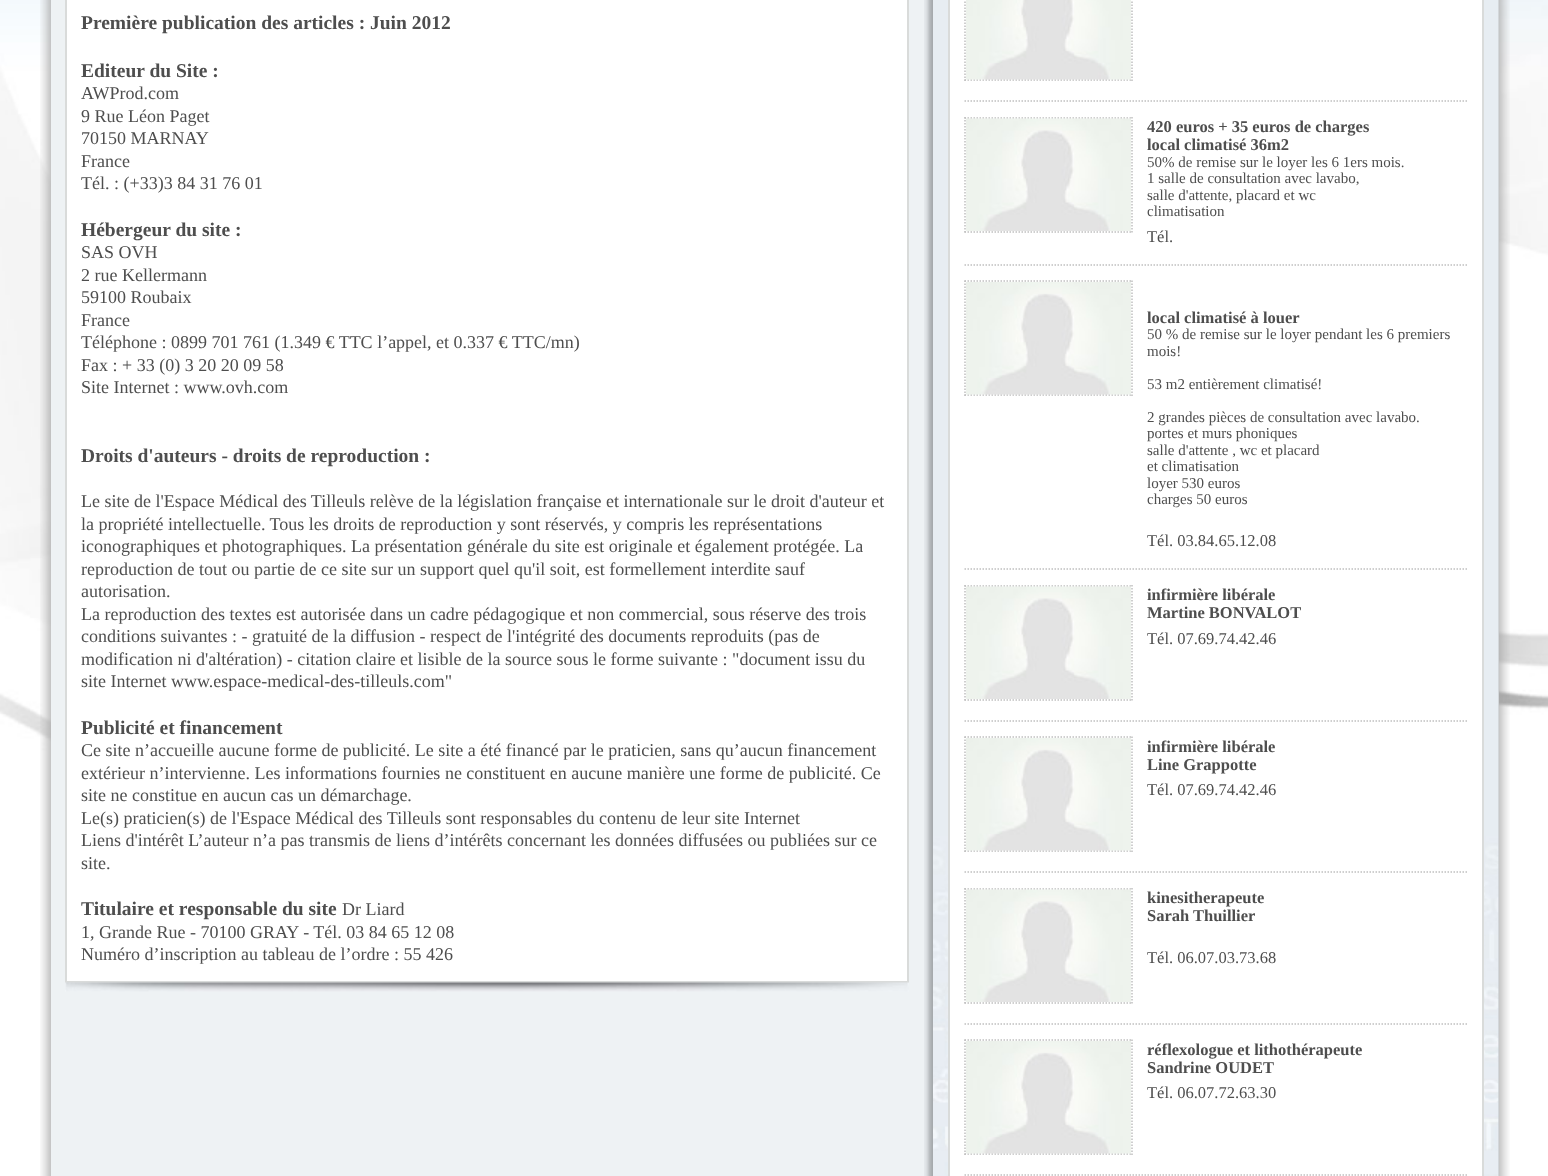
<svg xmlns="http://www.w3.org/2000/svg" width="1548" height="1176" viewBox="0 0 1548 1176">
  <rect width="100%" height="100%" fill="#fff"/>
  <image x="0" y="0" width="1548" height="1176" href="img/1.png"/>
  <image x="40" y="0" width="11" height="1176" href="img/2.png"/>
  <path d="M51 0h873v1176H51z" fill="#eef2f4"/>
  <path d="M66 -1h842v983H66z" fill="#fff" stroke="#d9dbda" stroke-width="2"/>
  <image x="65" y="982" width="844" height="10" href="img/3.png"/>
  <image x="924" y="0" width="9" height="1176" href="img/4.png"/>
  <path d="M933 0h566v1176H933z" fill="#e7edf2"/>
  <image x="933" y="836" width="566" height="340" href="img/5.png"/>
  <path d="M949 -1h534v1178H949z" fill="#fff" stroke="#d9dbda" stroke-width="2"/>
  <path d="M964.5 80H1132.5" fill="none" stroke="#c0c0c0" stroke-width="1.5" stroke-dasharray="1.5 1.5"/>
  <path d="M965-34.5V81" fill="none" stroke="#c0c0c0" stroke-width="1.5" stroke-dasharray="1.5 1.5"/>
  <image x="966" y="0" width="165" height="80" href="img/6.png"/>
  <path d="M1132-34.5V81" fill="none" stroke="#c0c0c0" stroke-width="1.5" stroke-dasharray="1.5 1.5"/>
  <path d="M964.5 101H1467" fill="none" stroke="#c0c0c0" stroke-width="1.5" stroke-dasharray="1.5 1.5"/>
  <path d="M964.5 118H1132.5" fill="none" stroke="#c0c0c0" stroke-width="1.5" stroke-dasharray="1.5 1.5"/>
  <path d="M964.5 232H1132.5" fill="none" stroke="#c0c0c0" stroke-width="1.5" stroke-dasharray="1.5 1.5"/>
  <path d="M965 117V232.5" fill="none" stroke="#c0c0c0" stroke-width="1.5" stroke-dasharray="1.5 1.5"/>
  <image x="966" y="118" width="165" height="113" href="img/7.png"/>
  <path d="M1132 117V232.5" fill="none" stroke="#c0c0c0" stroke-width="1.5" stroke-dasharray="1.5 1.5"/>
  <path d="M964.5 265H1467" fill="none" stroke="#c0c0c0" stroke-width="1.5" stroke-dasharray="1.5 1.5"/>
  <path d="M964.5 281H1132.5" fill="none" stroke="#c0c0c0" stroke-width="1.5" stroke-dasharray="1.5 1.5"/>
  <path d="M964.5 395H1132.5" fill="none" stroke="#c0c0c0" stroke-width="1.5" stroke-dasharray="1.5 1.5"/>
  <path d="M965 280.5V396" fill="none" stroke="#c0c0c0" stroke-width="1.5" stroke-dasharray="1.5 1.5"/>
  <image x="966" y="282" width="165" height="113" href="img/8.png"/>
  <path d="M1132 280.5V396" fill="none" stroke="#c0c0c0" stroke-width="1.5" stroke-dasharray="1.5 1.5"/>
  <path d="M964.5 569H1467" fill="none" stroke="#c0c0c0" stroke-width="1.5" stroke-dasharray="1.5 1.5"/>
  <path d="M964.5 586H1132.5" fill="none" stroke="#c0c0c0" stroke-width="1.5" stroke-dasharray="1.5 1.5"/>
  <path d="M964.5 700H1132.5" fill="none" stroke="#c0c0c0" stroke-width="1.5" stroke-dasharray="1.5 1.5"/>
  <path d="M965 585V700.5" fill="none" stroke="#c0c0c0" stroke-width="1.5" stroke-dasharray="1.5 1.5"/>
  <image x="966" y="586" width="165" height="113" href="img/7.png"/>
  <path d="M1132 585V700.5" fill="none" stroke="#c0c0c0" stroke-width="1.5" stroke-dasharray="1.5 1.5"/>
  <path d="M964.5 721H1467" fill="none" stroke="#c0c0c0" stroke-width="1.5" stroke-dasharray="1.5 1.5"/>
  <path d="M964.5 737H1132.5" fill="none" stroke="#c0c0c0" stroke-width="1.5" stroke-dasharray="1.5 1.5"/>
  <path d="M964.5 851H1132.5" fill="none" stroke="#c0c0c0" stroke-width="1.5" stroke-dasharray="1.5 1.5"/>
  <path d="M965 736.5V852" fill="none" stroke="#c0c0c0" stroke-width="1.5" stroke-dasharray="1.5 1.5"/>
  <image x="966" y="738" width="165" height="113" href="img/8.png"/>
  <path d="M1132 736.5V852" fill="none" stroke="#c0c0c0" stroke-width="1.5" stroke-dasharray="1.5 1.5"/>
  <path d="M964.5 872H1467" fill="none" stroke="#c0c0c0" stroke-width="1.5" stroke-dasharray="1.5 1.5"/>
  <path d="M964.5 889H1132.5" fill="none" stroke="#c0c0c0" stroke-width="1.5" stroke-dasharray="1.5 1.5"/>
  <path d="M964.5 1003H1132.5" fill="none" stroke="#c0c0c0" stroke-width="1.5" stroke-dasharray="1.5 1.5"/>
  <path d="M965 888V1003.5" fill="none" stroke="#c0c0c0" stroke-width="1.5" stroke-dasharray="1.5 1.5"/>
  <image x="966" y="889" width="165" height="113" href="img/7.png"/>
  <path d="M1132 888V1003.5" fill="none" stroke="#c0c0c0" stroke-width="1.5" stroke-dasharray="1.5 1.5"/>
  <path d="M964.5 1024H1467" fill="none" stroke="#c0c0c0" stroke-width="1.5" stroke-dasharray="1.5 1.5"/>
  <path d="M964.5 1040H1132.5" fill="none" stroke="#c0c0c0" stroke-width="1.5" stroke-dasharray="1.5 1.5"/>
  <path d="M964.5 1154H1132.5" fill="none" stroke="#c0c0c0" stroke-width="1.5" stroke-dasharray="1.5 1.5"/>
  <path d="M965 1039.5V1155" fill="none" stroke="#c0c0c0" stroke-width="1.5" stroke-dasharray="1.5 1.5"/>
  <image x="966" y="1041" width="165" height="113" href="img/8.png"/>
  <path d="M1132 1039.5V1155" fill="none" stroke="#c0c0c0" stroke-width="1.5" stroke-dasharray="1.5 1.5"/>
  <path d="M964.5 1175H1467" fill="none" stroke="#c0c0c0" stroke-width="1.5" stroke-dasharray="1.5 1.5"/>
  <image x="1498" y="0" width="12" height="1176" href="img/9.png"/>
  <g font-family="Liberation Serif" font-size="19.5" font-weight="bold" fill="#4e4e4e">
    <text x="81" y="29">Première publication des articles : Juin 2012</text>
    <text x="81" y="77">Editeur du Site :</text>
  </g>
  <g font-family="Liberation Serif" font-size="18" fill="#4e4e4e">
    <text x="81" y="99">AWProd.com</text>
    <text x="81" y="122">9 Rue Léon Paget</text>
    <text x="81" y="144">70150 MARNAY</text>
    <text x="81" y="167">France</text>
    <text x="81" y="189">Tél. : (+33)3 84 31 76 01</text>
  </g>
  <text x="81" y="236" font-family="Liberation Serif" font-size="19.5" font-weight="bold" fill="#4e4e4e">Hébergeur du site :</text>
  <g font-family="Liberation Serif" font-size="18" fill="#4e4e4e">
    <text x="81" y="258">SAS OVH</text>
    <text x="81" y="281">2 rue Kellermann</text>
    <text x="81" y="303">59100 Roubaix</text>
    <text x="81" y="326">France</text>
    <text x="81" y="348">Téléphone : 0899 701 761 (1.349 € TTC l’appel, et 0.337 € TTC/mn)</text>
    <text x="81" y="371">Fax : + 33 (0) 3 20 20 09 58</text>
    <text x="81" y="393">Site Internet : www.ovh.com</text>
  </g>
  <text x="81" y="462" font-family="Liberation Serif" font-size="19.5" font-weight="bold" fill="#4e4e4e">Droits d'auteurs - droits de reproduction :</text>
  <g font-family="Liberation Serif" font-size="18" fill="#4e4e4e">
    <text x="81" y="507">Le site de l'Espace Médical des Tilleuls relève de la législation française et internationale sur le droit d'auteur et</text>
    <text x="81" y="530">la propriété intellectuelle. Tous les droits de reproduction y sont réservés, y compris les représentations</text>
    <text x="81" y="552">iconographiques et photographiques. La présentation générale du site est originale et également protégée. La</text>
    <text x="81" y="575">reproduction de tout ou partie de ce site sur un support quel qu'il soit, est formellement interdite sauf</text>
    <text x="81" y="597">autorisation.</text>
    <text x="81" y="620">La reproduction des textes est autorisée dans un cadre pédagogique et non commercial, sous réserve des trois</text>
    <text x="81" y="642">conditions suivantes : - gratuité de la diffusion - respect de l'intégrité des documents reproduits (pas de</text>
    <text x="81" y="665">modification ni d'altération) - citation claire et lisible de la source sous le forme suivante : "document issu du</text>
    <text x="81" y="687">site Internet www.espace-medical-des-tilleuls.com"</text>
  </g>
  <text x="81" y="734" font-family="Liberation Serif" font-size="19.5" font-weight="bold" fill="#4e4e4e">Publicité et financement</text>
  <g font-family="Liberation Serif" font-size="18" fill="#4e4e4e">
    <text x="81" y="756">Ce site n’accueille aucune forme de publicité. Le site a été financé par le praticien, sans qu’aucun financement</text>
    <text x="81" y="779">extérieur n’intervienne. Les informations fournies ne constituent en aucune manière une forme de publicité. Ce</text>
    <text x="81" y="801">site ne constitue en aucun cas un démarchage.</text>
    <text x="81" y="824">Le(s) praticien(s) de l'Espace Médical des Tilleuls sont responsables du contenu de leur site Internet</text>
    <text x="81" y="846">Liens d'intérêt L’auteur n’a pas transmis de liens d’intérêts concernant les données diffusées ou publiées sur ce</text>
    <text x="81" y="869">site.</text>
  </g>
  <text x="81" y="915" font-family="Liberation Serif" font-size="19.5" font-weight="bold" fill="#4e4e4e">Titulaire et responsable du site</text>
  <g font-family="Liberation Serif" font-size="18" fill="#4e4e4e">
    <text x="342" y="915">Dr Liard</text>
    <text x="81" y="938">1, Grande Rue - 70100 GRAY - Tél. 03 84 65 12 08</text>
    <text x="81" y="960">Numéro d’inscription au tableau de l’ordre : 55 426</text>
  </g>
  <g font-family="Liberation Serif" font-size="16.5" font-weight="bold" fill="#4e4e4e">
    <text x="1147" y="132">420 euros + 35 euros de charges</text>
    <text x="1147" y="150">local climatisé 36m2</text>
  </g>
  <g font-family="Liberation Serif" font-size="15" fill="#4e4e4e">
    <text x="1147" y="167">50% de remise sur le loyer les 6 1ers mois.</text>
    <text x="1147" y="183">1 salle de consultation avec lavabo,</text>
    <text x="1147" y="200">salle d'attente, placard et wc</text>
    <text x="1147" y="216">climatisation</text>
  </g>
  <text x="1147" y="242" font-family="Liberation Serif" font-size="16.5" fill="#4e4e4e">Tél.</text>
  <text x="1147" y="323" font-family="Liberation Serif" font-size="16.5" font-weight="bold" fill="#4e4e4e">local climatisé à louer</text>
  <g font-family="Liberation Serif" font-size="15" fill="#4e4e4e">
    <text x="1147" y="339">50 % de remise sur le loyer pendant les 6 premiers</text>
    <text x="1147" y="356">mois!</text>
    <text x="1147" y="389">53 m2 entièrement climatisé!</text>
    <text x="1147" y="422">2 grandes pièces de consultation avec lavabo.</text>
    <text x="1147" y="438">portes et murs phoniques</text>
    <text x="1147" y="455">salle d'attente , wc et placard</text>
    <text x="1147" y="471">et climatisation</text>
    <text x="1147" y="488">loyer 530 euros</text>
    <text x="1147" y="504">charges 50 euros</text>
  </g>
  <text x="1147" y="546" font-family="Liberation Serif" font-size="16.5" fill="#4e4e4e">Tél. 03.84.65.12.08</text>
  <g font-family="Liberation Serif" font-size="16.5" font-weight="bold" fill="#4e4e4e">
    <text x="1147" y="600">infirmière libérale</text>
    <text x="1147" y="618">Martine BONVALOT</text>
  </g>
  <text x="1147" y="644" font-family="Liberation Serif" font-size="16.5" fill="#4e4e4e">Tél. 07.69.74.42.46</text>
  <g font-family="Liberation Serif" font-size="16.5" font-weight="bold" fill="#4e4e4e">
    <text x="1147" y="752">infirmière libérale</text>
    <text x="1147" y="770">Line Grappotte</text>
  </g>
  <text x="1147" y="795" font-family="Liberation Serif" font-size="16.5" fill="#4e4e4e">Tél. 07.69.74.42.46</text>
  <g font-family="Liberation Serif" font-size="16.5" font-weight="bold" fill="#4e4e4e">
    <text x="1147" y="903">kinesitherapeute</text>
    <text x="1147" y="921">Sarah Thuillier</text>
  </g>
  <text x="1147" y="963" font-family="Liberation Serif" font-size="16.5" fill="#4e4e4e">Tél. 06.07.03.73.68</text>
  <g font-family="Liberation Serif" font-size="16.5" font-weight="bold" fill="#4e4e4e">
    <text x="1147" y="1055">réflexologue et lithothérapeute</text>
    <text x="1147" y="1073">Sandrine OUDET</text>
  </g>
  <text x="1147" y="1098" font-family="Liberation Serif" font-size="16.5" fill="#4e4e4e">Tél. 06.07.72.63.30</text>
</svg>
